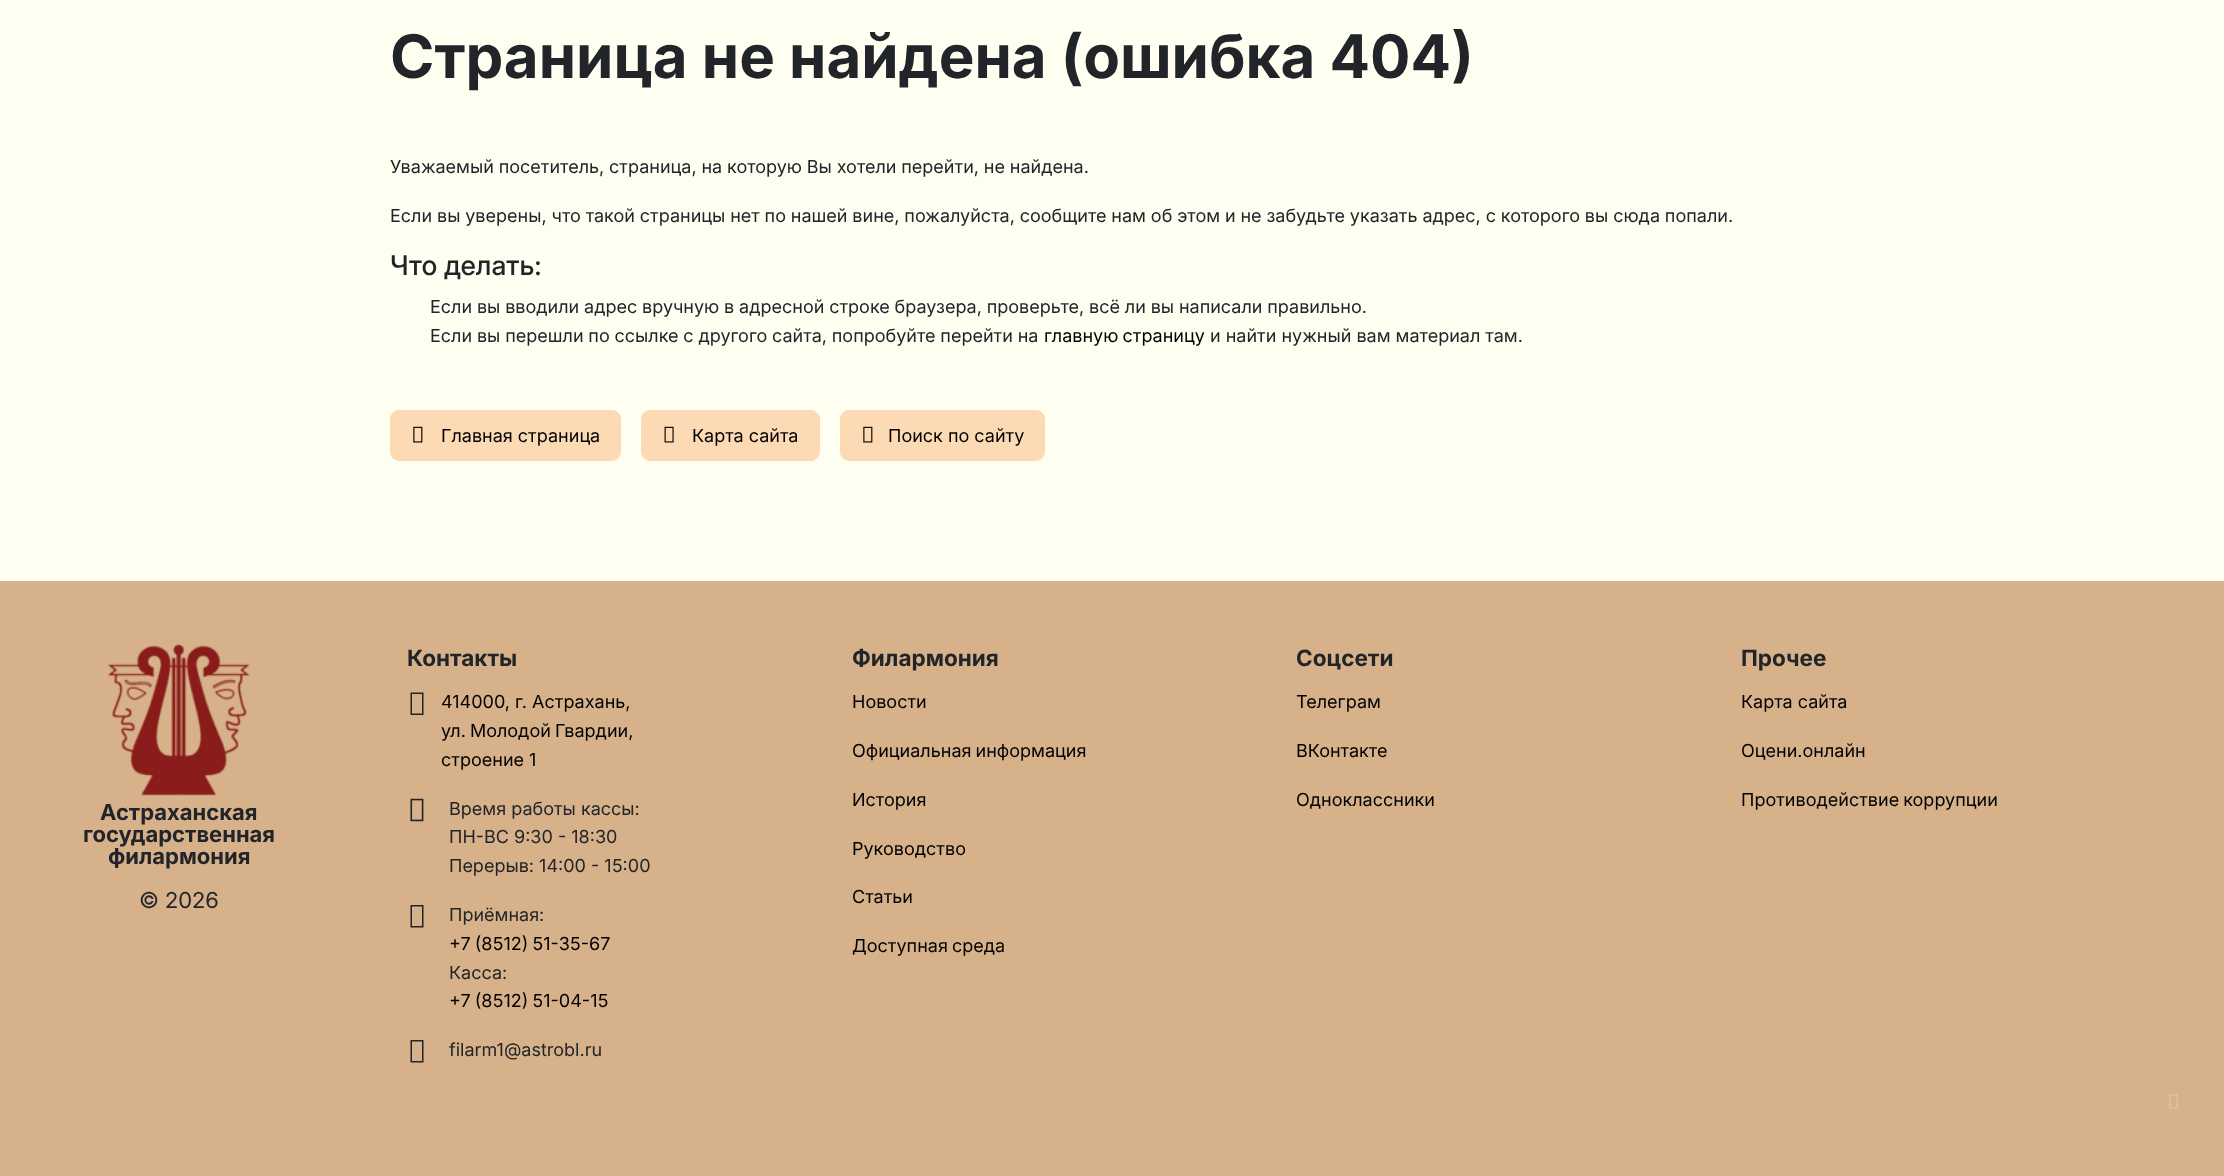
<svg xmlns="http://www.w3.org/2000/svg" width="2224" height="1176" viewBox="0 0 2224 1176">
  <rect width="100%" height="100%" fill="#fffff1"/>
  <rect x="390.5" y="410.5" width="230" height="50" rx="8.5" fill="#fcdab4" stroke="#fcdab4"/>
  <image x="413" y="426" width="10" height="17" href="img/1.png"/>
  <rect x="641.5" y="410.5" width="178" height="50" rx="8.5" fill="#fcdab4" stroke="#fcdab4"/>
  <image x="664" y="426" width="10" height="17" href="img/2.png"/>
  <rect x="840.5" y="410.5" width="204" height="50" rx="8.5" fill="#fcdab4" stroke="#fcdab4"/>
  <image x="863" y="426" width="10" height="17" href="img/1.png"/>
  <path d="M0 581h2224v595H0z" fill="#d7b189"/>
  <image x="107" y="643" width="143" height="153" href="img/3.png"/>
  <path d="M410.5 715V692.5H423.5V715ZM412 713.5H422V694H412Z" fill="#212529"/>
  <image x="410" y="798" width="14" height="24" href="img/4.png"/>
  <path d="M410.5 927.5V905H423.5V927.5ZM412 926H422V906.5H412Z" fill="#212529"/>
  <path d="M410.5 1062.5V1040H423.5V1062.5ZM412 1061H422V1041.5H412Z" fill="#212529"/>
  <image x="2169" y="1094" width="9" height="15" href="img/5.png"/>
  <text x="390" y="78" font-family="Inter" font-size="60" font-weight="bold" fill="#212529">Страница не найдена (ошибка 404)</text>
  <g font-family="Inter" font-size="18" fill="#212529">
    <text x="390" y="173" word-spacing="-0.25">Уважаемый посетитель, страница, на которую Вы хотели перейти, не найдена.</text>
    <text x="390" y="222" word-spacing="-0.2">Если вы уверены, что такой страницы нет по нашей вине, пожалуйста, сообщите нам об этом и не забудьте указать адрес, с которого вы сюда попали.</text>
  </g>
  <text x="390" y="275" font-family="Inter" font-size="27" font-weight="500" fill="#212529">Что делать:</text>
  <g font-family="Inter" font-size="18" fill="#212529">
    <text x="430" y="313" word-spacing="-0.25">Если вы вводили адрес вручную в адресной строке браузера, проверьте, всё ли вы написали правильно.</text>
    <text x="430" y="342" word-spacing="-0.25">Если вы перешли по ссылке с другого сайта, попробуйте перейти на</text>
  </g>
  <text x="1044" y="342" word-spacing="-1" font-family="Inter" font-size="18" fill="#000">главную страницу</text>
  <text x="1210" y="342" font-family="Inter" font-size="18" fill="#212529">и найти нужный вам материал там.</text>
  <g font-family="Inter" font-size="18" fill="#000">
    <text x="441" y="442">Главная страница</text>
    <text x="692" y="442">Карта сайта</text>
    <text x="888" y="442">Поиск по сайту</text>
  </g>
  <g font-family="Inter" font-size="22" font-weight="bold" fill="#212529">
    <text x="100" y="820">Астраханская</text>
    <text x="83" y="842">государственная</text>
    <text x="108" y="864">филармония</text>
  </g>
  <text x="139" y="908" font-family="'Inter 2'" font-size="22" fill="#212529">© 2026</text>
  <text x="407" y="666" font-family="Inter" font-size="22.5" font-weight="bold" fill="#212529">Контакты</text>
  <g font-family="Inter" font-size="18" fill="#000">
    <text x="441" y="708">414000, г. Астрахань,</text>
    <text x="441" y="737" word-spacing="-1">ул. Молодой Гвардии,</text>
    <text x="441" y="766">строение 1</text>
  </g>
  <g font-family="Inter" font-size="18" fill="#212529">
    <text x="449" y="815">Время работы кассы:</text>
    <text x="449" y="843">ПН-ВС 9:30 - 18:30</text>
    <text x="449" y="872">Перерыв: 14:00 - 15:00</text>
    <text x="449" y="921">Приёмная:</text>
  </g>
  <text x="449" y="950" word-spacing="-1" font-family="Inter" font-size="18" fill="#000">+7 (8512) 51-35-67</text>
  <text x="449" y="979" font-family="Inter" font-size="18" fill="#212529">Касса:</text>
  <text x="449" y="1007" word-spacing="-1" font-family="Inter" font-size="18" fill="#000">+7 (8512) 51-04-15</text>
  <text x="449" y="1056" font-family="Inter" font-size="18" fill="#212529">filarm1@astrobl.ru</text>
  <text x="852" y="666" font-family="Inter" font-size="22.5" font-weight="bold" fill="#212529">Филармония</text>
  <g font-family="Inter" font-size="18" fill="#000">
    <text x="852" y="708">Новости</text>
    <text x="852" y="757" word-spacing="-1">Официальная информация</text>
    <text x="852" y="806">История</text>
    <text x="852" y="855">Руководство</text>
    <text x="852" y="903">Статьи</text>
    <text x="852" y="952" word-spacing="-1">Доступная среда</text>
  </g>
  <text x="1296" y="666" font-family="Inter" font-size="22.5" font-weight="bold" fill="#212529">Соцсети</text>
  <g font-family="Inter" font-size="18" fill="#000">
    <text x="1296" y="708">Телеграм</text>
    <text x="1296" y="757">ВКонтакте</text>
    <text x="1296" y="806">Одноклассники</text>
  </g>
  <text x="1741" y="666" font-family="Inter" font-size="22.5" font-weight="bold" fill="#212529">Прочее</text>
  <g font-family="Inter" font-size="18" fill="#000">
    <text x="1741" y="708">Карта сайта</text>
    <text x="1741" y="757">Оцени.онлайн</text>
    <text x="1741" y="806" word-spacing="-1">Противодействие коррупции</text>
  </g>
</svg>
